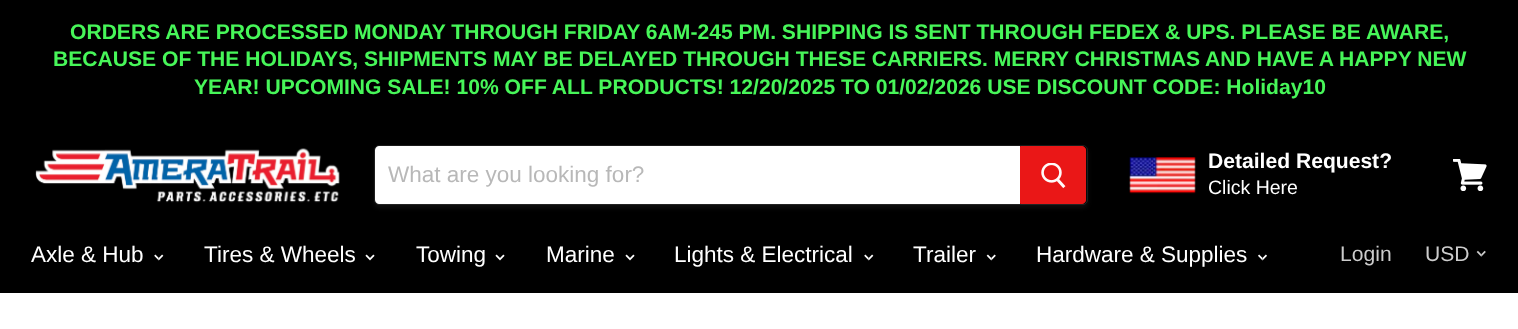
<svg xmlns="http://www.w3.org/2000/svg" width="1518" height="329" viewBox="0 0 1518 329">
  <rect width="100%" height="100%" fill="#fff"/>
  <path d="M0 0h1518v293H0z" fill="#000"/>
  <image x="35" y="148" width="305" height="55" href="img/1.png"/>
  <rect x="374" y="148" width="714" height="60" rx="5" fill="#7f7f7f1c" filter="blur(2px)"/>
  <rect x="374.5" y="145.5" width="713" height="59" rx="4.5" fill="none" stroke="#7f7f7f33"/>
  <path d="M379 146H1020V204H379C377 204 375 202 375 200V150C375 148 377 146 379 146Z" fill="#fff"/>
  <path d="M1020.5 146.5H1082C1084 146.5 1085.5 148 1085.5 150V200C1085.5 202 1084 203.5 1082 203.5H1020.5Z" fill="#ea1717" stroke="#ea1717"/>
  <image x="1041" y="163" width="25" height="26" href="img/2.png"/>
  <image x="1129" y="157" width="67" height="37" href="img/3.png"/>
  <image x="1453" y="159" width="34" height="32" href="img/4.png"/>
  <image x="154" y="254" width="10" height="7" href="img/5.png"/>
  <image x="365" y="254" width="10" height="7" href="img/6.png"/>
  <image x="495" y="254" width="10" height="7" href="img/6.png"/>
  <image x="625" y="254" width="10" height="7" href="img/6.png"/>
  <image x="864" y="254" width="10" height="7" href="img/5.png"/>
  <image x="986" y="254" width="10" height="7" href="img/7.png"/>
  <image x="1258" y="254" width="9" height="7" href="img/8.png"/>
  <image x="1476" y="250" width="10" height="7" href="img/9.png"/>
  <g font-family="Liberation Sans" font-size="21.1" font-weight="bold" fill="#47f659">
    <text x="70" y="39">ORDERS ARE PROCESSED MONDAY THROUGH FRIDAY 6AM-245 PM. SHIPPING IS SENT THROUGH FEDEX &amp; UPS. PLEASE BE AWARE,</text>
    <text x="53" y="66">BECAUSE OF THE HOLIDAYS, SHIPMENTS MAY BE DELAYED THROUGH THESE CARRIERS. MERRY CHRISTMAS AND HAVE A HAPPY NEW</text>
    <text x="194" y="94">YEAR! UPCOMING SALE! 10% OFF ALL PRODUCTS! 12/20/2025 TO 01/02/2026 USE DISCOUNT CODE: Holiday10</text>
  </g>
  <text x="388" y="182" font-family="Liberation Sans" font-size="22.5" fill="#b8b8b8">What are you looking for?</text>
  <text x="1208" y="168" font-family="Liberation Sans" font-size="21.1" font-weight="bold" fill="#fff">Detailed Request?</text>
  <text x="1208" y="194" font-family="Liberation Sans" font-size="19.5" fill="#fff">Click Here</text>
  <g font-family="Liberation Sans" font-size="22.5" fill="#fff">
    <text x="31" y="262">Axle &amp; Hub</text>
    <text x="204" y="262">Tires &amp; Wheels</text>
    <text x="416" y="262">Towing</text>
    <text x="546" y="262">Marine</text>
    <text x="674" y="262">Lights &amp; Electrical</text>
    <text x="913" y="262">Trailer</text>
    <text x="1036" y="262">Hardware &amp; Supplies</text>
  </g>
  <g font-family="Liberation Sans" font-size="21.1" fill="#ccc">
    <text x="1340" y="261">Login</text>
    <text x="1425" y="261">USD</text>
  </g>
</svg>
